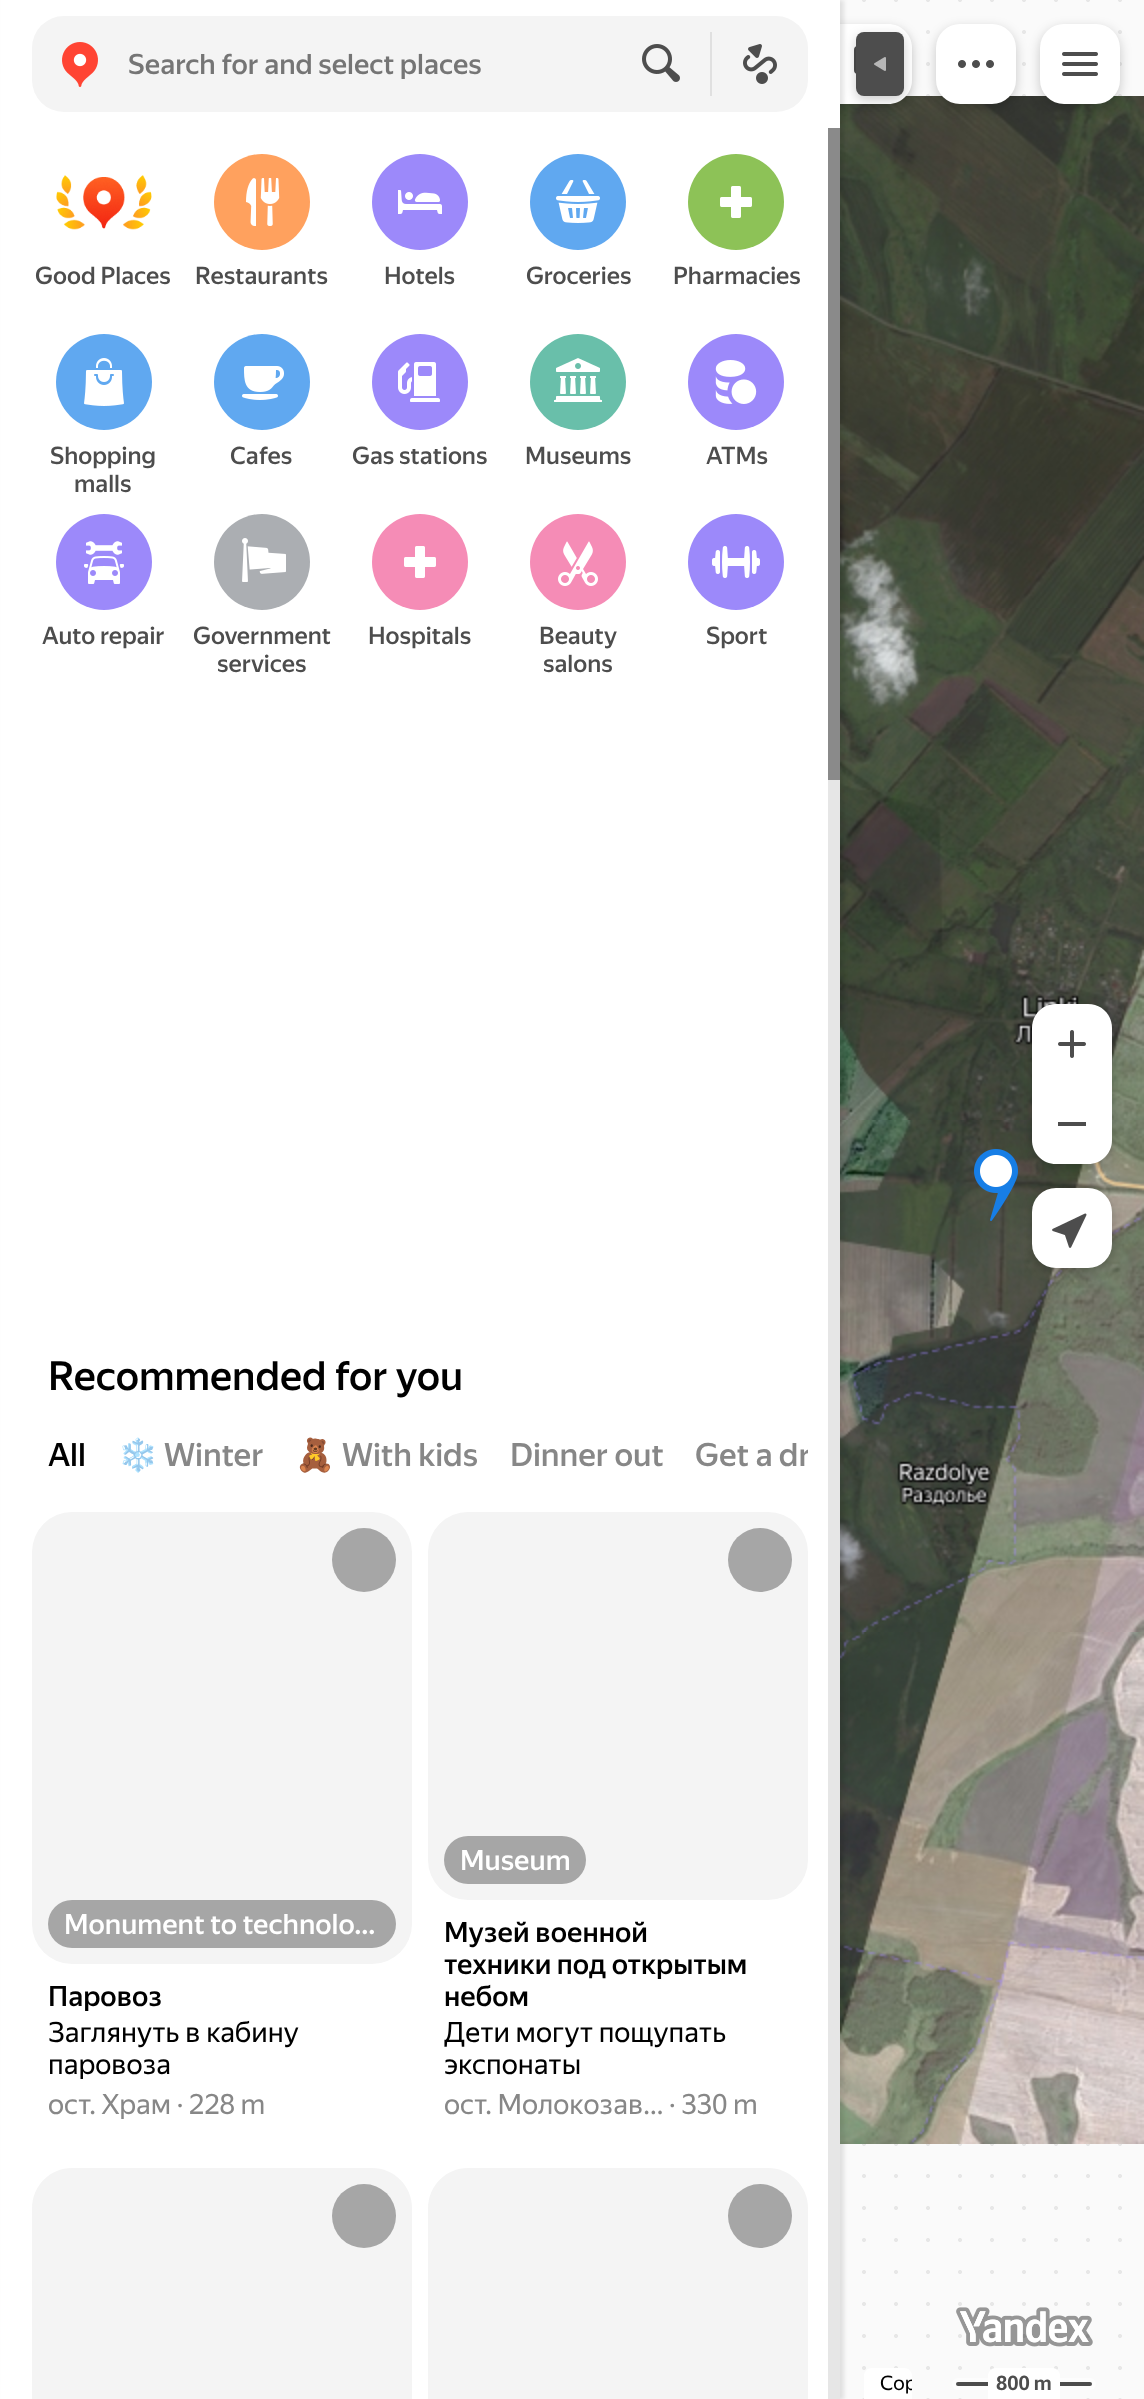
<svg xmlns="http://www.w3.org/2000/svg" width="1144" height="2399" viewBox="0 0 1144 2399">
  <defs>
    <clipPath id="clip1"><path d="M32 1416h776v80H32z"/></clipPath>
    <clipPath id="clip2"><path d="M872 2368H904C908.5 2368 912 2371.5 912 2376V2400H864V2376C864 2371.5 867.5 2368 872 2368Z"/></clipPath>
  </defs>
  <rect width="100%" height="100%" fill="#fff"/>
  <image x="840" y="0" width="304" height="2399" href="img/1.png"/>
  <image x="840" y="96" width="304" height="512" href="img/27.png"/>
  <rect x="752" y="28" width="160" height="80" rx="24" fill="#00000033" filter="blur(6px)"/>
  <path d="M832 24H888C901.5 24 912 34.5 912 48V80C912 93.5 901.5 104 888 104H832Z" fill="#fff"/>
  <image x="840" y="608" width="304" height="512" href="img/28.png"/>
  <image x="840" y="1120" width="304" height="512" href="img/29.png"/>
  <image x="840" y="1632" width="304" height="512" href="img/30.png"/>
  <image x="840" y="1632" width="304" height="512" href="img/33.png"/>
  <path d="M4 0h840v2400H4z" fill="#0000001a" filter="blur(2px)"/>
  <image x="854" y="46" width="2" height="28" href="img/5.png"/>
  <rect x="856" y="36" width="48" height="64" rx="8" fill="#00000033" filter="blur(6px)"/>
  <path d="M1 0h839v2399H1z" fill="#fff"/>
  <rect x="32" y="16" width="776" height="96" rx="32" fill="#f4f4f4"/>
  <image x="62" y="42" width="36" height="45" href="img/2.png"/>
  <image x="642" y="44" width="38" height="38" href="img/3.png"/>
  <path d="M710 32h2v64H710z" fill="#e0e0e0"/>
  <image x="743" y="44" width="34" height="40" href="img/4.png"/>
  <rect x="936" y="28" width="80" height="80" rx="24" fill="#00000033" filter="blur(6px)"/>
  <rect x="936" y="24" width="80" height="80" rx="24" fill="#fff"/>
  <image x="958" y="60" width="36" height="8" href="img/6.png"/>
  <rect x="1040" y="28" width="80" height="80" rx="24" fill="#00000033" filter="blur(6px)"/>
  <rect x="1040" y="24" width="80" height="80" rx="24" fill="#fff"/>
  <image x="1062" y="52" width="36" height="24" href="img/7.png"/>
  <image x="1013" y="994" width="66" height="51" href="img/31.png"/>
  <image x="851" y="1160" width="293" height="472" href="img/32.png"/>
  <image x="974" y="1149" width="44" height="72" href="img/34.png"/>
  <rect x="1032" y="1008" width="80" height="160" rx="24" fill="#00000033" filter="blur(6px)"/>
  <path d="M1056 1004H1088C1101.5 1004 1112 1014.5 1112 1028V1084H1032V1028C1032 1014.5 1042.5 1004 1056 1004Z" fill="#fff"/>
  <image x="1058" y="1030" width="28" height="28" href="img/8.png"/>
  <path d="M1032 1084H1112V1140C1112 1153.5 1101.5 1164 1088 1164H1056C1042.5 1164 1032 1153.5 1032 1140Z" fill="#fff"/>
  <path d="M1058 1122h28v4H1058z" fill="#4d4d4d"/>
  <rect x="1032" y="1192" width="80" height="80" rx="24" fill="#00000033" filter="blur(6px)"/>
  <rect x="1032" y="1188" width="80" height="80" rx="24" fill="#fff"/>
  <image x="1052" y="1213" width="35" height="35" href="img/9.png"/>
  <rect x="856" y="32" width="48" height="64" rx="8" fill="#4d4d4d"/>
  <image x="874" y="57" width="12" height="14" href="img/10.png"/>
  <image x="56" y="175" width="96" height="55" href="img/11.png"/>
  <circle cx="262" cy="202" r="48" fill="#ffa15e"/>
  <image x="246" y="178" width="34" height="48" href="img/12.png"/>
  <circle cx="420" cy="202" r="48" fill="#9c89fa"/>
  <image x="398" y="190" width="44" height="24" href="img/13.png"/>
  <circle cx="578" cy="202" r="48" fill="#60a8f0"/>
  <image x="556" y="180" width="44" height="43" href="img/14.png"/>
  <circle cx="736" cy="202" r="48" fill="#8dc257"/>
  <image x="720" y="186" width="32" height="32" href="img/15.png"/>
  <circle cx="104" cy="382" r="48" fill="#60a8f0"/>
  <image x="84" y="358" width="40" height="48" href="img/16.png"/>
  <circle cx="262" cy="382" r="48" fill="#60a8f0"/>
  <image x="242" y="366" width="42" height="34" href="img/17.png"/>
  <circle cx="420" cy="382" r="48" fill="#9c89fa"/>
  <image x="398" y="362" width="42" height="40" href="img/18.png"/>
  <circle cx="578" cy="382" r="48" fill="#69bfaa"/>
  <image x="554" y="358" width="48" height="44" href="img/19.png"/>
  <circle cx="736" cy="382" r="48" fill="#9c89fa"/>
  <image x="715" y="360" width="42" height="44" href="img/20.png"/>
  <circle cx="104" cy="562" r="48" fill="#9c89fa"/>
  <image x="84" y="541" width="40" height="43" href="img/21.png"/>
  <circle cx="262" cy="562" r="48" fill="#abaeb2"/>
  <image x="242" y="538" width="44" height="44" href="img/22.png"/>
  <circle cx="420" cy="562" r="48" fill="#f58cb6"/>
  <image x="404" y="546" width="32" height="32" href="img/23.png"/>
  <circle cx="578" cy="562" r="48" fill="#f58cb6"/>
  <image x="558" y="541" width="40" height="45" href="img/24.png"/>
  <circle cx="736" cy="562" r="48" fill="#9c89fa"/>
  <image x="712" y="546" width="48" height="32" href="img/25.png"/>
  <rect x="32" y="1512" width="380" height="452" rx="40" fill="#f4f4f4"/>
  <circle cx="364" cy="1560" r="32" fill="#a6a6a6"/>
  <rect x="48" y="1900" width="348" height="48" rx="24" fill="#a6a6a6"/>
  <rect x="428" y="1512" width="380" height="388" rx="40" fill="#f4f4f4"/>
  <circle cx="760" cy="1560" r="32" fill="#a6a6a6"/>
  <rect x="444" y="1836" width="142" height="48" rx="24" fill="#a6a6a6"/>
  <path d="M72 2168H372C394 2168 412 2186 412 2208V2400H32V2208C32 2186 50 2168 72 2168Z" fill="#f4f4f4"/>
  <circle cx="364" cy="2216" r="32" fill="#a6a6a6"/>
  <path d="M468 2168H768C790 2168 808 2186 808 2208V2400H428V2208C428 2186 446 2168 468 2168Z" fill="#f4f4f4"/>
  <circle cx="760" cy="2216" r="32" fill="#a6a6a6"/>
  <path d="M828 128h12v652H828z" fill="#8a8a8a"/>
  <path d="M828 780h12v1619H828z" fill="#e6e6e6"/>
  <image x="956" y="2307" width="137" height="40" href="img/26.png"/>
  <path d="M872 2368H904C908.5 2368 912 2371.5 912 2376V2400H864V2376C864 2371.5 867.5 2368 872 2368Z" fill="#fff"/>
  <rect x="952" y="2378" width="144" height="12" rx="6" fill="#fdfdfd"/>
  <rect x="956" y="2382" width="136" height="4" rx="2" fill="#4d4d4d"/>
  <path d="M996 2368H1052C1056.5 2368 1060 2371.5 1060 2376V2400H988V2376C988 2371.5 991.5 2368 996 2368Z" fill="#fff"/>
  <text x="128" y="74" font-family="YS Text" font-size="28" font-weight="500" fill="#757575">Search for and select places</text>
  <g font-family="YS Text" font-size="24" font-weight="500" fill="#4d4d4d">
    <text x="35" y="284">Good Places</text>
    <text x="195" y="284">Restaurants</text>
    <text x="384" y="284">Hotels</text>
    <text x="526" y="284">Groceries</text>
    <text x="673" y="284">Pharmacies</text>
    <text x="50" y="464">Shopping</text>
    <text x="74" y="492">malls</text>
    <text x="230" y="464">Cafes</text>
    <text x="352" y="464">Gas stations</text>
    <text x="525" y="464">Museums</text>
    <text x="706" y="464">ATMs</text>
    <text x="42" y="644">Auto repair</text>
    <text x="193" y="644">Government</text>
    <text x="217" y="672">services</text>
    <text x="368" y="644">Hospitals</text>
    <text x="539" y="644">Beauty</text>
    <text x="543" y="672">salons</text>
    <text x="706" y="644">Sport</text>
  </g>
  <text x="48" y="1390" font-family="YS Text" font-size="40" font-weight="500" fill="#000">Recommended for you</text>
  <text x="48" y="1466" font-family="YS Text" font-size="32" font-weight="500" fill="#000">All</text>
  <text x="118" y="1466" font-family="Noto Color Emoji" font-size="32" fill="#878787">❄️</text>
  <text x="164" y="1466" font-family="YS Text" font-size="32" font-weight="500" fill="#878787">Winter</text>
  <text x="295" y="1466" font-family="Noto Color Emoji" font-size="32" fill="#878787">🧸</text>
  <g font-family="YS Text" font-size="32" font-weight="500" fill="#878787">
    <text x="342" y="1466">With kids</text>
    <text x="510" y="1466">Dinner out</text>
  </g>
  <g clip-path="url(#clip1)">
    <text x="695" y="1466" font-family="YS Text" font-size="32" font-weight="500" fill="#878787">Get a dr</text>
  </g>
  <text x="64" y="1934" font-family="YS Text" font-size="28" font-weight="500" fill="#fff">Monument to technolo…</text>
  <text x="48" y="2006" font-family="YS Text" font-size="28" font-weight="500" fill="#000">Паровоз</text>
  <g font-family="YS Text" font-size="28" fill="#000">
    <text x="48" y="2042">Заглянуть в кабину</text>
    <text x="48" y="2074">паровоза</text>
  </g>
  <text x="48" y="2114" font-family="YS Text" font-size="28" fill="#878787">ост. Храм · 228 m</text>
  <text x="460" y="1870" font-family="YS Text" font-size="28" font-weight="500" fill="#fff">Museum</text>
  <g font-family="YS Text" font-size="28" font-weight="500" fill="#000">
    <text x="444" y="1942">Музей военной</text>
    <text x="444" y="1974">техники под открытым</text>
    <text x="444" y="2006">небом</text>
  </g>
  <g font-family="YS Text" font-size="28" fill="#000">
    <text x="444" y="2042">Дети могут пощупать</text>
    <text x="444" y="2074">экспонаты</text>
  </g>
  <text x="444" y="2114" font-family="YS Text" font-size="28" fill="#878787">ост. Молокозав… · 330 m</text>
  <g clip-path="url(#clip2)">
    <text x="880" y="2390" font-family="YS Text" font-size="20" fill="#000">Cop</text>
  </g>
  <text x="996" y="2390" font-family="YS Text" font-size="20" font-weight="bold" fill="#4d4d4d">800 m</text>
</svg>
